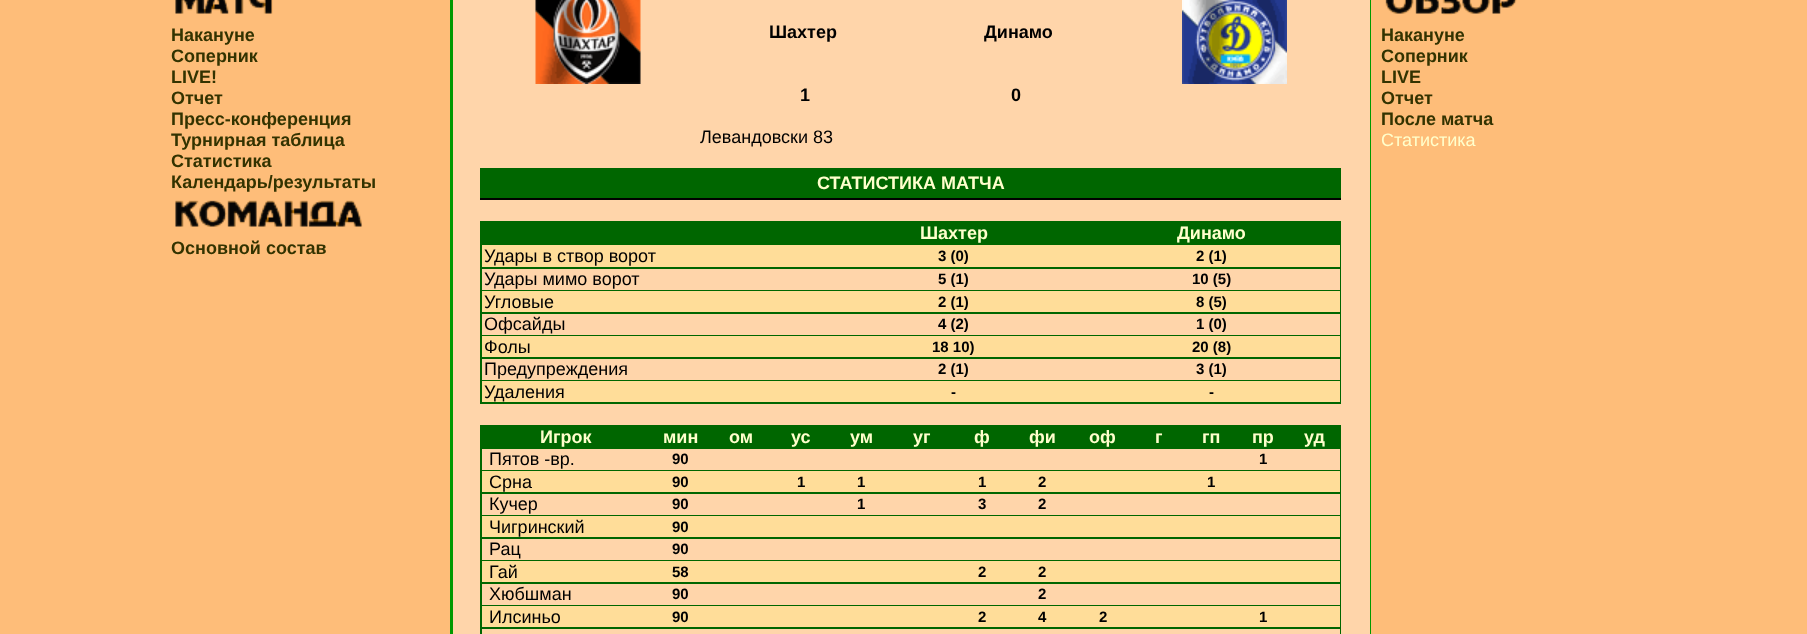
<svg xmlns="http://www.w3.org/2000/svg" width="1807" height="634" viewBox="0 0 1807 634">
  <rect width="100%" height="100%" fill="#febd79"/>
  <image x="175" y="0" width="98" height="14" href="img/1.png"/>
  <image x="175" y="200" width="188" height="27" href="img/2.png"/>
  <path d="M450 0h3v634H450z" fill="#090"/>
  <path d="M453 0h917v634H453z" fill="#ffd5aa"/>
  <image x="535" y="0" width="106" height="84" href="img/3.png"/>
  <image x="1182" y="0" width="105" height="84" href="img/4.png"/>
  <path d="M480 168h861v30H480z" fill="#060"/>
  <path d="M480 198h861v2H480z" fill="#000"/>
  <path d="M480 221h861v183H480z" fill="#060"/>
  <path d="M482 245h858v22H482z" fill="#fd9"/>
  <path d="M482 269h858v21H482z" fill="#ffd5aa"/>
  <path d="M482 291h858v21H482z" fill="#fd9"/>
  <path d="M482 314h858v21H482z" fill="#ffd5aa"/>
  <path d="M482 336h858v21H482z" fill="#fd9"/>
  <path d="M482 359h858v21H482z" fill="#ffd5aa"/>
  <path d="M482 381h858v21H482z" fill="#fd9"/>
  <path d="M480 425h861v209H480z" fill="#060"/>
  <path d="M482 449h858v21H482z" fill="#ffd5aa"/>
  <path d="M482 471h858v21H482z" fill="#fd9"/>
  <path d="M482 494h858v21H482z" fill="#ffd5aa"/>
  <path d="M482 516h858v21H482z" fill="#fd9"/>
  <path d="M482 539h858v21H482z" fill="#ffd5aa"/>
  <path d="M482 561h858v21H482z" fill="#fd9"/>
  <path d="M482 584h858v21H482z" fill="#ffd5aa"/>
  <path d="M482 606h858v21H482z" fill="#fd9"/>
  <path d="M482 629h858v5H482z" fill="#ffd5aa"/>
  <path d="M1370 0h1v634H1370z" fill="#090"/>
  <image x="1385" y="0" width="132" height="15" href="img/5.png"/>
  <g font-family="Liberation Sans" font-size="18" font-weight="bold" fill="#330">
    <text x="171" y="41">Накануне</text>
    <text x="171" y="62">Соперник</text>
    <text x="171" y="83">LIVE!</text>
    <text x="171" y="104">Отчет</text>
    <text x="171" y="125">Пресс-конференция</text>
    <text x="171" y="146">Турнирная таблица</text>
    <text x="171" y="167">Статистика</text>
    <text x="171" y="188">Календарь/результаты</text>
    <text x="171" y="254">Основной состав</text>
  </g>
  <g font-family="Liberation Sans" font-size="18" font-weight="bold" fill="#000">
    <text x="769" y="38">Шахтер</text>
    <text x="984" y="38">Динамо</text>
    <text x="800" y="101">1</text>
    <text x="1011" y="101">0</text>
  </g>
  <text x="700" y="143" font-family="Liberation Sans" font-size="18" fill="#000">Левандовски 83</text>
  <g font-family="Liberation Sans" font-size="18" font-weight="bold" fill="#ffc">
    <text x="817" y="189">СТАТИСТИКА МАТЧА</text>
    <text x="920" y="239">Шахтер</text>
    <text x="1177" y="239">Динамо</text>
  </g>
  <text x="484" y="262" font-family="Liberation Sans" font-size="18" fill="#000">Удары в створ ворот</text>
  <g font-family="Liberation Sans" font-size="15" font-weight="bold" fill="#000">
    <text x="938" y="261">3 (0)</text>
    <text x="1196" y="261">2 (1)</text>
  </g>
  <text x="484" y="285" font-family="Liberation Sans" font-size="18" fill="#000">Удары мимо ворот</text>
  <g font-family="Liberation Sans" font-size="15" font-weight="bold" fill="#000">
    <text x="938" y="284">5 (1)</text>
    <text x="1192" y="284">10 (5)</text>
  </g>
  <text x="484" y="308" font-family="Liberation Sans" font-size="18" fill="#000">Угловые</text>
  <g font-family="Liberation Sans" font-size="15" font-weight="bold" fill="#000">
    <text x="938" y="307">2 (1)</text>
    <text x="1196" y="307">8 (5)</text>
  </g>
  <text x="484" y="330" font-family="Liberation Sans" font-size="18" fill="#000">Офсайды</text>
  <g font-family="Liberation Sans" font-size="15" font-weight="bold" fill="#000">
    <text x="938" y="329">4 (2)</text>
    <text x="1196" y="329">1 (0)</text>
  </g>
  <text x="484" y="353" font-family="Liberation Sans" font-size="18" fill="#000">Фолы</text>
  <g font-family="Liberation Sans" font-size="15" font-weight="bold" fill="#000">
    <text x="932" y="352">18 10)</text>
    <text x="1192" y="352">20 (8)</text>
  </g>
  <text x="484" y="375" font-family="Liberation Sans" font-size="18" fill="#000">Предупреждения</text>
  <g font-family="Liberation Sans" font-size="15" font-weight="bold" fill="#000">
    <text x="938" y="374">2 (1)</text>
    <text x="1196" y="374">3 (1)</text>
  </g>
  <text x="484" y="398" font-family="Liberation Sans" font-size="18" fill="#000">Удаления</text>
  <g font-family="Liberation Sans" font-size="15" font-weight="bold" fill="#000">
    <text x="951" y="397">-</text>
    <text x="1209" y="397">-</text>
  </g>
  <g font-family="Liberation Sans" font-size="18" font-weight="bold" fill="#ffc">
    <text x="540" y="443">Игрок</text>
    <text x="663" y="443">мин</text>
    <text x="729" y="443">ом</text>
    <text x="791" y="443">ус</text>
    <text x="850" y="443">ум</text>
    <text x="913" y="443">уг</text>
    <text x="974" y="443">ф</text>
    <text x="1029" y="443">фи</text>
    <text x="1089" y="443">оф</text>
    <text x="1155" y="443">г</text>
    <text x="1202" y="443">гп</text>
    <text x="1252" y="443">пр</text>
    <text x="1304" y="443">уд</text>
  </g>
  <text x="489" y="465" font-family="Liberation Sans" font-size="18" fill="#000">Пятов -вр.</text>
  <g font-family="Liberation Sans" font-size="15" font-weight="bold" fill="#000">
    <text x="672" y="464">90</text>
    <text x="1259" y="464">1</text>
  </g>
  <text x="489" y="488" font-family="Liberation Sans" font-size="18" fill="#000">Срна</text>
  <g font-family="Liberation Sans" font-size="15" font-weight="bold" fill="#000">
    <text x="672" y="487">90</text>
    <text x="797" y="487">1</text>
    <text x="857" y="487">1</text>
    <text x="978" y="487">1</text>
    <text x="1038" y="487">2</text>
    <text x="1207" y="487">1</text>
  </g>
  <text x="489" y="510" font-family="Liberation Sans" font-size="18" fill="#000">Кучер</text>
  <g font-family="Liberation Sans" font-size="15" font-weight="bold" fill="#000">
    <text x="672" y="509">90</text>
    <text x="857" y="509">1</text>
    <text x="978" y="509">3</text>
    <text x="1038" y="509">2</text>
  </g>
  <text x="489" y="533" font-family="Liberation Sans" font-size="18" fill="#000">Чигринский</text>
  <text x="672" y="532" font-family="Liberation Sans" font-size="15" font-weight="bold" fill="#000">90</text>
  <text x="489" y="555" font-family="Liberation Sans" font-size="18" fill="#000">Рац</text>
  <text x="672" y="554" font-family="Liberation Sans" font-size="15" font-weight="bold" fill="#000">90</text>
  <text x="489" y="578" font-family="Liberation Sans" font-size="18" fill="#000">Гай</text>
  <g font-family="Liberation Sans" font-size="15" font-weight="bold" fill="#000">
    <text x="672" y="577">58</text>
    <text x="978" y="577">2</text>
    <text x="1038" y="577">2</text>
  </g>
  <text x="489" y="600" font-family="Liberation Sans" font-size="18" fill="#000">Хюбшман</text>
  <g font-family="Liberation Sans" font-size="15" font-weight="bold" fill="#000">
    <text x="672" y="599">90</text>
    <text x="1038" y="599">2</text>
  </g>
  <text x="489" y="623" font-family="Liberation Sans" font-size="18" fill="#000">Илсиньо</text>
  <g font-family="Liberation Sans" font-size="15" font-weight="bold" fill="#000">
    <text x="672" y="622">90</text>
    <text x="978" y="622">2</text>
    <text x="1038" y="622">4</text>
    <text x="1099" y="622">2</text>
    <text x="1259" y="622">1</text>
  </g>
  <g font-family="Liberation Sans" font-size="18" font-weight="bold" fill="#330">
    <text x="1381" y="41">Накануне</text>
    <text x="1381" y="62">Соперник</text>
    <text x="1381" y="83">LIVE</text>
    <text x="1381" y="104">Отчет</text>
    <text x="1381" y="125">После матча</text>
  </g>
  <text x="1381" y="146" font-family="Liberation Sans" font-size="18" fill="#ffc">Статистика</text>
</svg>
